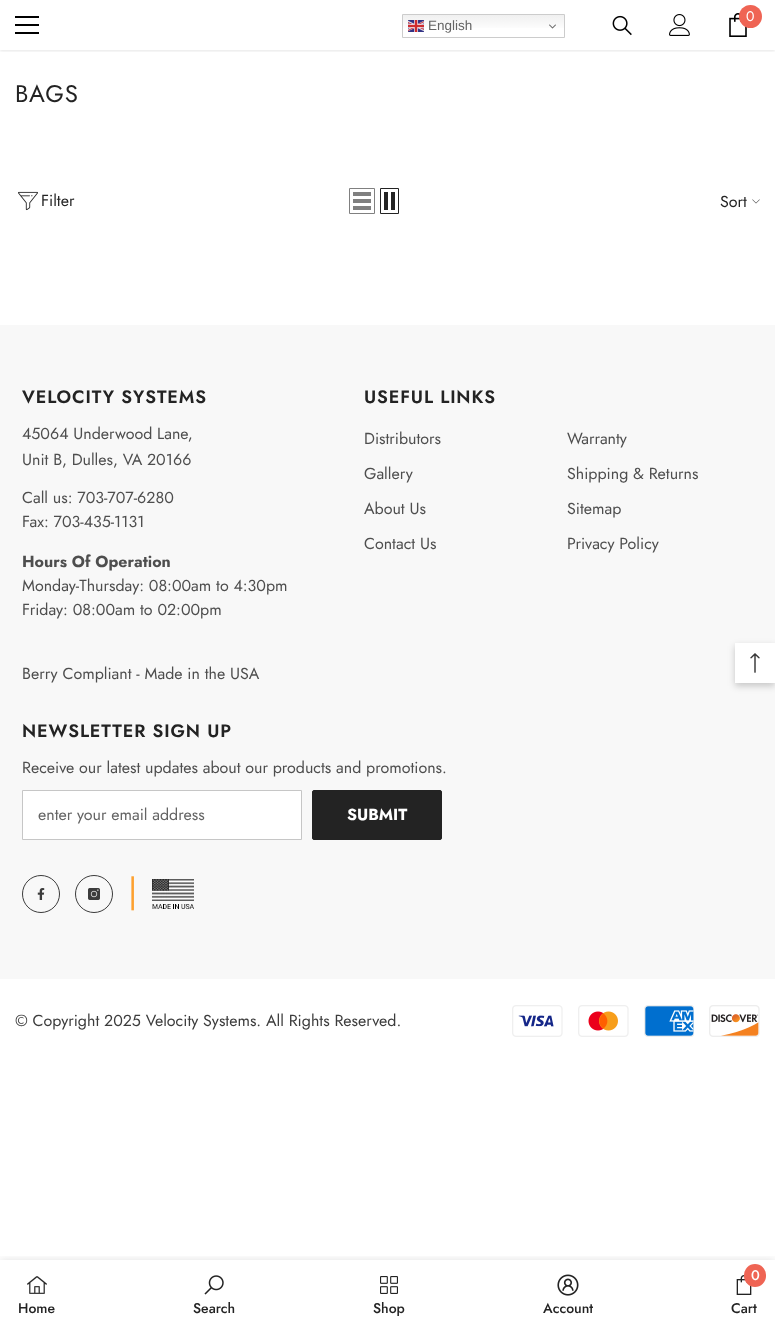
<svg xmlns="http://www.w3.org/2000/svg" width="775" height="1326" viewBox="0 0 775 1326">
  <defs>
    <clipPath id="clip1"><path d="M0 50h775v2H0z"/></clipPath>
    <clipPath id="clip2"><path d="M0 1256h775v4H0z"/></clipPath>
    <linearGradient id="g1" gradientUnits="userSpaceOnUse" x1="484" y1="14" x2="484" y2="38"><stop offset="0" stop-color="#efefef"/><stop offset="0.7" stop-color="#fff"/></linearGradient>
  </defs>
  <rect width="100%" height="100%" fill="#fff"/>
  <g clip-path="url(#clip1)">
    <path d="M0 1h775v50H0z" fill="#0000001a" filter="blur(1.5px)"/>
  </g>
  <path d="M15 24h24v2H15z" fill="#000"/>
  <path d="M15 16h24v2H15z" fill="#000"/>
  <path d="M15 32h24v2H15z" fill="#000"/>
  <image x="612" y="15" width="20" height="21" href="img/1.png"/>
  <image x="669" y="14" width="21" height="22" href="img/2.png"/>
  <image x="729" y="13" width="18" height="24" href="img/3.png"/>
  <circle cx="750.5" cy="16.5" r="11.5" fill="#ef6454"/>
  <image x="18" y="191" width="20" height="20" href="img/4.png"/>
  <path d="M349.5 188.5h25v25H349.5z" fill="none" stroke="#808080"/>
  <path d="M353 206h18v4H353z" fill="#808080"/>
  <path d="M353 199h18v4H353z" fill="#808080"/>
  <path d="M353 192h18v4H353z" fill="#808080"/>
  <path d="M380.5 188.5h18v25H380.5z" fill="none" stroke="#232323"/>
  <path d="M391 192h4v18H391z" fill="#232323"/>
  <path d="M384 192h4v18H384z" fill="#232323"/>
  <image x="752" y="199" width="8" height="5" href="img/5.png"/>
  <path d="M0 325h775v654H0z" fill="#f8f8f8"/>
  <path d="M22.5 790.5h279v49H22.5z" fill="#fff" stroke="#c6c6c6"/>
  <rect x="312.5" y="790.5" width="129" height="49" rx="1.5" fill="#232323" stroke="#232323"/>
  <circle cx="41" cy="894" r="18.5" fill="none" stroke="#3c3c3c"/>
  <image x="37" y="888" width="8" height="12" href="img/6.png"/>
  <circle cx="94" cy="894" r="18.5" fill="none" stroke="#3c3c3c"/>
  <image x="88" y="888" width="12" height="12" href="img/7.png"/>
  <image x="152" y="879" width="42" height="30" href="img/8.png"/>
  <image x="512" y="1005" width="51" height="32" href="img/9.png"/>
  <image x="578" y="1005" width="51" height="32" href="img/10.png"/>
  <image x="644" y="1005" width="50" height="32" href="img/11.png"/>
  <image x="709" y="1005" width="51" height="32" href="img/12.png"/>
  <g clip-path="url(#clip2)">
    <path d="M0 1260h775v66H0z" fill="#0000001f" filter="blur(4.5px)"/>
  </g>
  <image x="27" y="1276" width="20" height="18" href="img/13.png"/>
  <image x="204" y="1275" width="20" height="20" href="img/14.png"/>
  <image x="380" y="1276" width="18" height="18" href="img/15.png"/>
  <image x="557" y="1274" width="22" height="22" href="img/16.png"/>
  <image x="736" y="1275" width="16" height="20" href="img/17.png"/>
  <rect x="744" y="1264" width="22" height="23" rx="11" fill="#ef6454"/>
  <path d="M403 15h161v13H403z" fill="url(#g1)"/>
  <path d="M402.5 14.5h162v23H402.5z" fill="none" stroke="#ccc"/>
  <image x="408" y="20" width="16" height="12" href="img/18.png"/>
  <image x="549" y="24" width="7" height="5" href="img/19.png"/>
  <path d="M735 646h40v40H735z" fill="#00000033" filter="blur(3.5px)"/>
  <path d="M735 643h40v40H735z" fill="#fff"/>
  <image x="750" y="653" width="10" height="20" href="img/20.png"/>
  <text x="746" y="21" font-family="Jost" font-size="14" fill="#fff">0</text>
  <text x="15" y="102" font-family="Jost" font-size="24" letter-spacing="1" fill="#232323">BAGS</text>
  <g font-family="Jost" font-size="16" fill="#232323">
    <text x="41" y="206">Filter</text>
    <text x="720" y="207">Sort</text>
  </g>
  <text x="22" y="403" font-family="Jost" font-size="18" font-weight="600" letter-spacing="0.9" fill="#232323">VELOCITY SYSTEMS</text>
  <g font-family="Jost" font-size="16" fill="#4e4e4e">
    <text x="22" y="439">45064 Underwood Lane,</text>
    <text x="22" y="465">Unit B, Dulles, VA 20166</text>
    <text x="22" y="503">Call us: 703-707-6280</text>
    <text x="22" y="527">Fax: 703-435-1131</text>
  </g>
  <text x="22" y="567" font-family="Jost" font-size="16" font-weight="bold" fill="#4e4e4e">Hours Of Operation</text>
  <g font-family="Jost" font-size="16" fill="#4e4e4e">
    <text x="22" y="591">Monday-Thursday: 08:00am to 4:30pm</text>
    <text x="22" y="615">Friday: 08:00am to 02:00pm</text>
    <text x="22" y="679">Berry Compliant - Made in the USA</text>
  </g>
  <text x="364" y="403" font-family="Jost" font-size="18" font-weight="600" letter-spacing="0.9" fill="#232323">USEFUL LINKS</text>
  <g font-family="Jost" font-size="16" fill="#4e4e4e">
    <text x="364" y="444">Distributors</text>
    <text x="567" y="444">Warranty</text>
    <text x="364" y="479">Gallery</text>
    <text x="567" y="479">Shipping &amp; Returns</text>
    <text x="364" y="514">About Us</text>
    <text x="567" y="514">Sitemap</text>
    <text x="364" y="549">Contact Us</text>
    <text x="567" y="549">Privacy Policy</text>
  </g>
  <text x="22" y="737" font-family="Jost" font-size="18" font-weight="600" letter-spacing="0.9" fill="#232323">NEWSLETTER SIGN UP</text>
  <text x="22" y="773" font-family="Jost" font-size="16" fill="#4e4e4e">Receive our latest updates about our products and promotions.</text>
  <text x="38" y="820" font-family="Jost" font-size="16" fill="#646464">enter your email address</text>
  <text x="347" y="820" font-family="Jost" font-size="16" font-weight="bold" fill="#fff">SUBMIT</text>
  <text x="128" y="903" font-family="Jost" font-size="34" fill="#fda130">|</text>
  <text x="15" y="1026" font-family="Jost" font-size="16" fill="#3c3c3c">© Copyright 2025 Velocity Systems. All Rights Reserved.</text>
  <g font-family="Jost" font-size="14" font-weight="500" fill="#232323">
    <text x="18" y="1313">Home</text>
    <text x="193" y="1313">Search</text>
    <text x="373" y="1313">Shop</text>
    <text x="543" y="1313">Account</text>
  </g>
  <text x="751" y="1280" font-family="Jost" font-size="14" font-weight="500" fill="#fff">0</text>
  <text x="731" y="1313" font-family="Jost" font-size="14" font-weight="500" fill="#232323">Cart</text>
  <text x="428" y="30" font-family="Liberation Sans" font-size="13.5" fill="#646464">English</text>
</svg>
